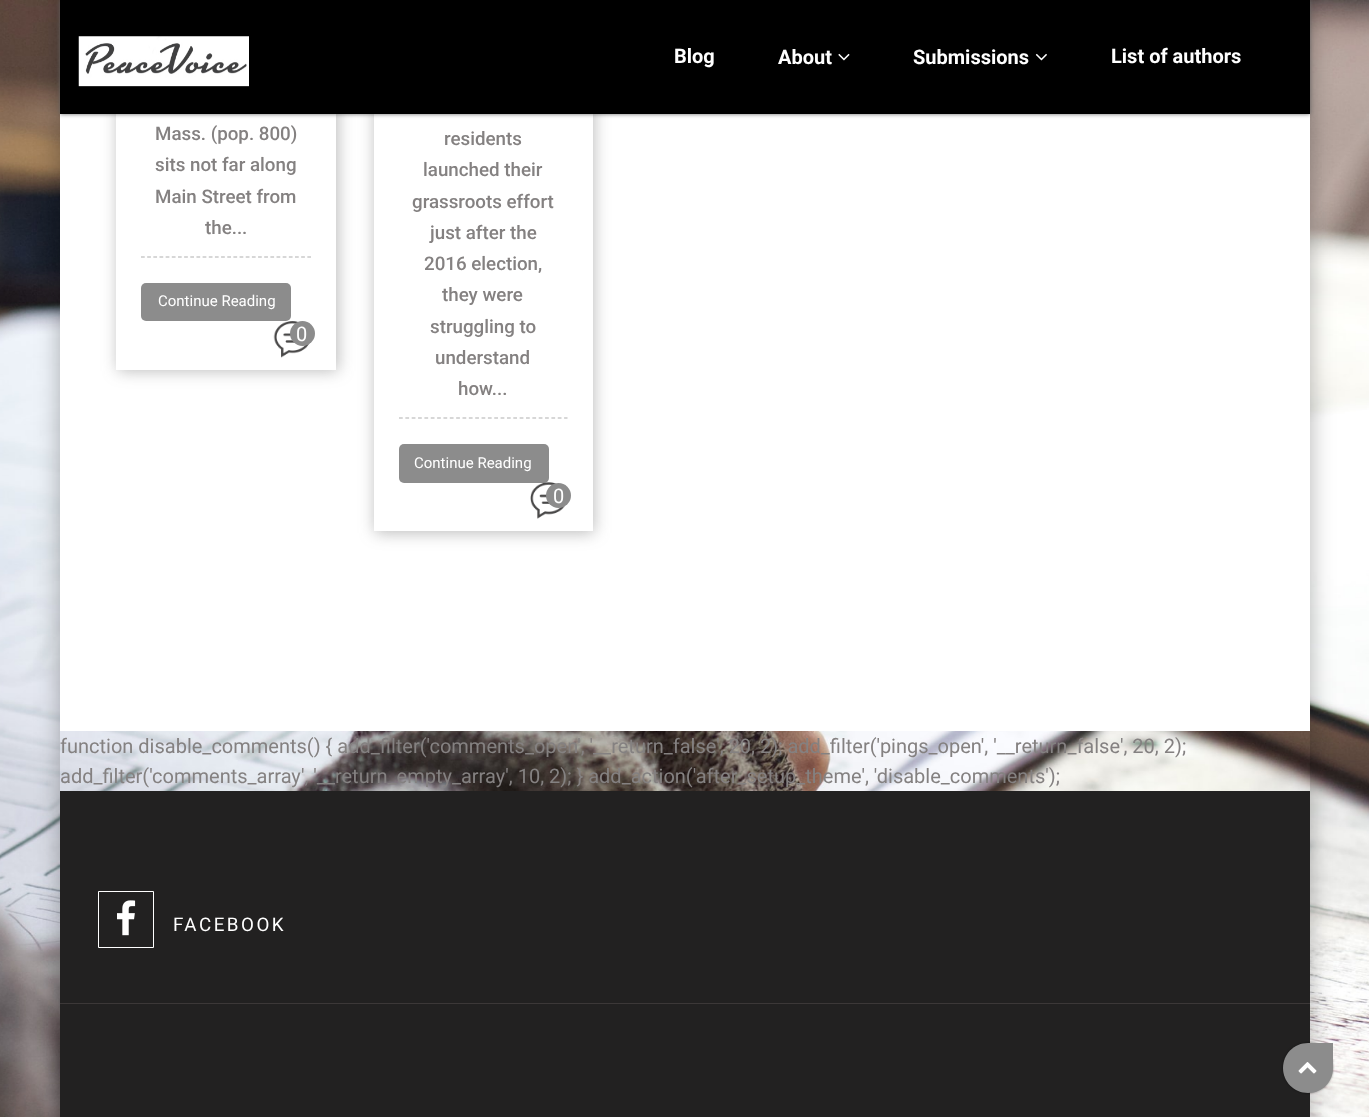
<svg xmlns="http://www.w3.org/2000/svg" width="1369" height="1117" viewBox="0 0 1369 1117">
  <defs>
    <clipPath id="clip1"><path d="M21 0H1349V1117H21ZM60-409H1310V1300H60Z" clip-rule="evenodd"/></clipPath>
  </defs>
  <rect width="100%" height="100%" fill="#fff"/>
  <image x="0" y="0" width="1369" height="1117" href="img/1.png"/>
  <g clip-path="url(#clip1)">
    <path d="M60 -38h1250v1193H60z" fill="#0000004d" filter="blur(12.5px)"/>
  </g>
  <path d="M60 114h1250v617H60z" fill="#fff"/>
  <path d="M118 -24h220v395H118z" fill="#55555566" filter="blur(8px)"/>
  <path d="M116 114h220v256H116z" fill="#fff"/>
  <path d="M375 -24h219v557H375z" fill="#55555566" filter="blur(8px)"/>
  <path d="M374 114h219v417H374z" fill="#fff"/>
  <path d="M60 0h1250v114H60z" fill="#666" filter="blur(2px)"/>
  <path d="M60 0h1250v114H60z" fill="#000"/>
  <image x="78" y="36" width="171" height="51" href="img/2.png"/>
  <image x="838" y="53" width="12" height="8" href="img/3.png"/>
  <image x="1035" y="53" width="12" height="8" href="img/4.png"/>
  <path d="M141 257H311" fill="none" stroke="#b0b0b0" stroke-width="1.2" stroke-dasharray="3.75 2.41"/>
  <rect x="141" y="283" width="150" height="38" rx="5" fill="#8c8c8c"/>
  <image x="273" y="321" width="37" height="37" href="img/5.png"/>
  <circle cx="302.5" cy="333.5" r="12.5" fill="#8c8c8c"/>
  <path d="M399 418H567.5" fill="none" stroke="#b0b0b0" stroke-width="1.2" stroke-dasharray="3.75 2.6"/>
  <rect x="399" y="444" width="150" height="39" rx="5" fill="#8c8c8c"/>
  <image x="530" y="482" width="36" height="37" href="img/6.png"/>
  <circle cx="558.5" cy="495.5" r="12.5" fill="#8c8c8c"/>
  <path d="M60 791h1250v326H60z" fill="#222121"/>
  <path d="M60 1003h1250v1H60z" fill="#3c3838"/>
  <path d="M98.5 891.5h55v56H98.5z" fill="none" stroke="#fff"/>
  <image x="117" y="900" width="19" height="36" href="img/7.png"/>
  <rect x="1283" y="1043" width="50" height="50" rx="25" fill="#00000080" filter="blur(1px)"/>
  <path d="M1308 1043H1333V1068C1333 1082 1322 1093 1308 1093C1294 1093 1283 1082 1283 1068C1283 1054 1294 1043 1308 1043Z" fill="#8c8c8c"/>
  <image x="1298" y="1062" width="19" height="12" href="img/8.png"/>
  <g font-family="Roboto" font-size="20" font-weight="bold" fill="#fff">
    <text x="674" y="63">Blog</text>
    <text x="778" y="64">About</text>
    <text x="913" y="64">Submissions</text>
    <text x="1111" y="63">List of authors</text>
  </g>
  <g font-family="Roboto" font-size="18.75" font-weight="500" fill="#848181">
    <text x="155" y="140">Mass. (pop. 800)</text>
    <text x="155" y="171">sits not far along</text>
    <text x="155" y="203">Main Street from</text>
    <text x="205" y="234">the...</text>
  </g>
  <text x="158" y="306" font-family="Roboto" font-size="15" fill="#fff">Continue Reading</text>
  <text x="296" y="341" font-family="Roboto" font-size="20" fill="#fff">0</text>
  <g font-family="Roboto" font-size="18.75" font-weight="500" fill="#848181">
    <text x="444" y="145">residents</text>
    <text x="423" y="176">launched their</text>
    <text x="412" y="208">grassroots effort</text>
    <text x="430" y="239">just after the</text>
    <text x="424" y="270">2016 election,</text>
    <text x="442" y="301">they were</text>
    <text x="430" y="333">struggling to</text>
    <text x="435" y="364">understand</text>
    <text x="458" y="395">how...</text>
  </g>
  <text x="414" y="468" font-family="Roboto" font-size="15" fill="#fff">Continue Reading</text>
  <text x="553" y="503" font-family="Roboto" font-size="20" fill="#fff">0</text>
  <g font-family="Roboto" font-size="20" fill="#848181">
    <text x="60" y="753">function disable_comments() { add_filter('comments_open', '__return_false', 20, 2); add_filter('pings_open', '__return_false', 20, 2);</text>
    <text x="60" y="783">add_filter('comments_array', '__return_empty_array', 10, 2); } add_action('after_setup_theme', 'disable_comments');</text>
  </g>
  <text x="173" y="931" font-family="Roboto" font-size="18.75" letter-spacing="2.5" fill="#fff">FACEBOOK</text>
</svg>
